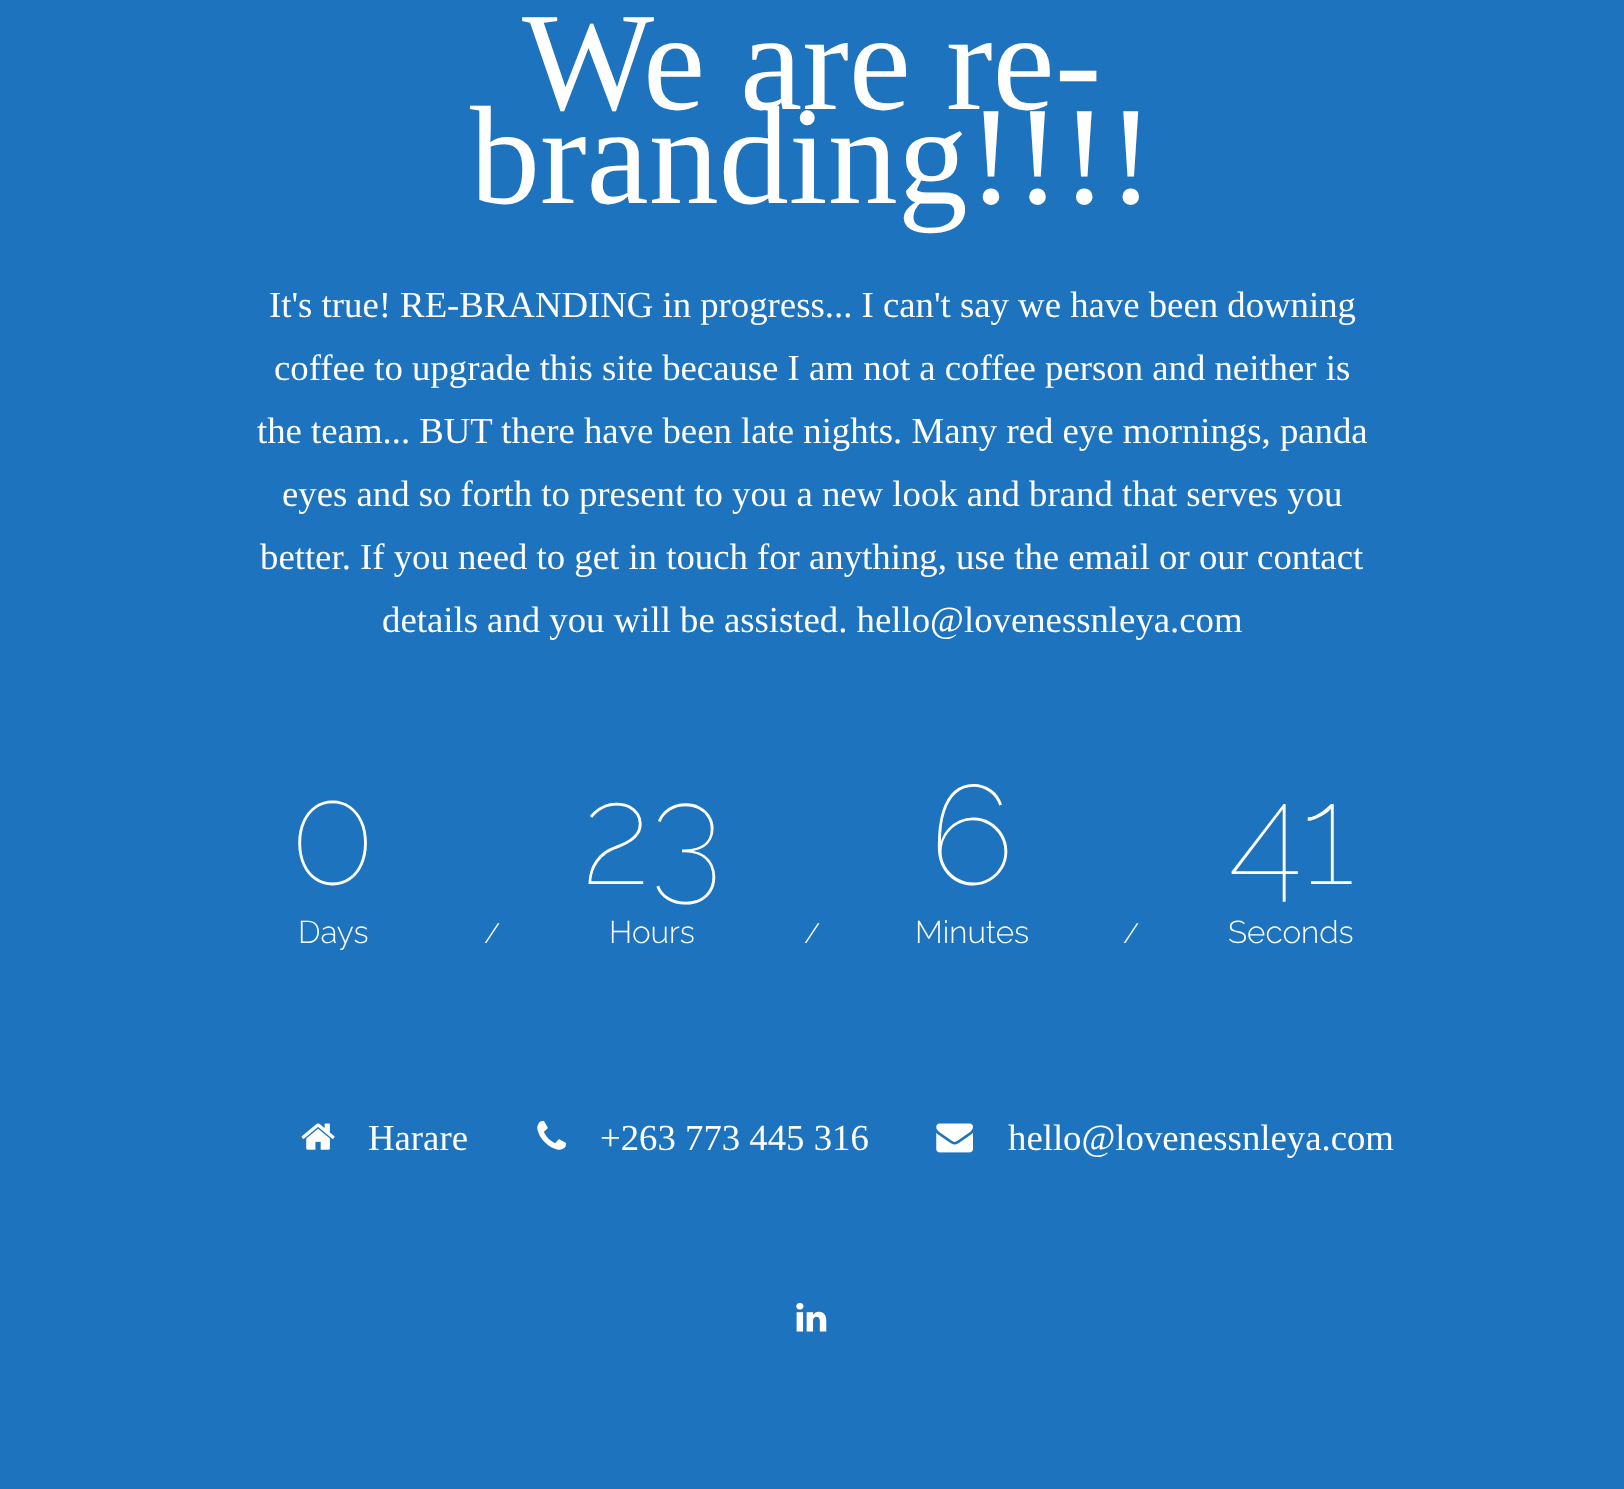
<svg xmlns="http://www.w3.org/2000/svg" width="1624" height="1489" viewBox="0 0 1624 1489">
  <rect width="100%" height="100%" fill="#1e73be"/>
  <image x="301" y="1123" width="34" height="27" href="img/1.png"/>
  <image x="537" y="1120" width="30" height="30" href="img/2.png"/>
  <image x="936" y="1123" width="37" height="30" href="img/3.png"/>
  <image x="796" y="1302" width="31" height="30" href="img/4.png"/>
  <g font-family="Liberation Serif" font-size="140" fill="#fff">
    <text x="522" y="109">We are re-</text>
    <text x="470" y="203">branding!!!!</text>
  </g>
  <g font-family="Liberation Serif" font-size="36.75" fill="#fff">
    <text x="269" y="317">It's true! RE-BRANDING in progress... I can't say we have been downing</text>
    <text x="274" y="380">coffee to upgrade this site because I am not a coffee person and neither is</text>
    <text x="257" y="443">the team... BUT there have been late nights. Many red eye mornings, panda</text>
    <text x="282" y="506">eyes and so forth to present to you a new look and brand that serves you</text>
    <text x="260" y="569">better. If you need to get in touch for anything, use the email or our contact</text>
    <text x="382" y="632">details and you will be assisted. hello@lovenessnleya.com</text>
  </g>
  <text x="290" y="884" font-family="Raleway" font-size="140" font-weight="100" fill="#fff">0</text>
  <text x="298" y="943" font-family="Raleway" font-size="31.5" font-weight="300" fill="#fff">Days</text>
  <text x="484" y="943" font-family="Raleway" font-size="28" font-weight="300" fill="#fff">/</text>
  <text x="582" y="884" font-family="Raleway" font-size="140" font-weight="100" fill="#fff">23</text>
  <text x="609" y="943" font-family="Raleway" font-size="31.5" font-weight="300" fill="#fff">Hours</text>
  <text x="804" y="943" font-family="Raleway" font-size="28" font-weight="300" fill="#fff">/</text>
  <text x="930" y="884" font-family="Raleway" font-size="140" font-weight="100" fill="#fff">6</text>
  <text x="915" y="943" font-family="Raleway" font-size="31.5" font-weight="300" fill="#fff">Minutes</text>
  <text x="1123" y="943" font-family="Raleway" font-size="28" font-weight="300" fill="#fff">/</text>
  <text x="1229" y="884" font-family="Raleway" font-size="140" font-weight="100" fill="#fff">41</text>
  <text x="1228" y="943" font-family="Raleway" font-size="31.5" font-weight="300" fill="#fff">Seconds</text>
  <g font-family="Liberation Serif" font-size="36.75" fill="#fff">
    <text x="368" y="1150">Harare</text>
    <text x="600" y="1150">+263 773 445 316</text>
    <text x="1008" y="1150">hello@lovenessnleya.com</text>
  </g>
</svg>
